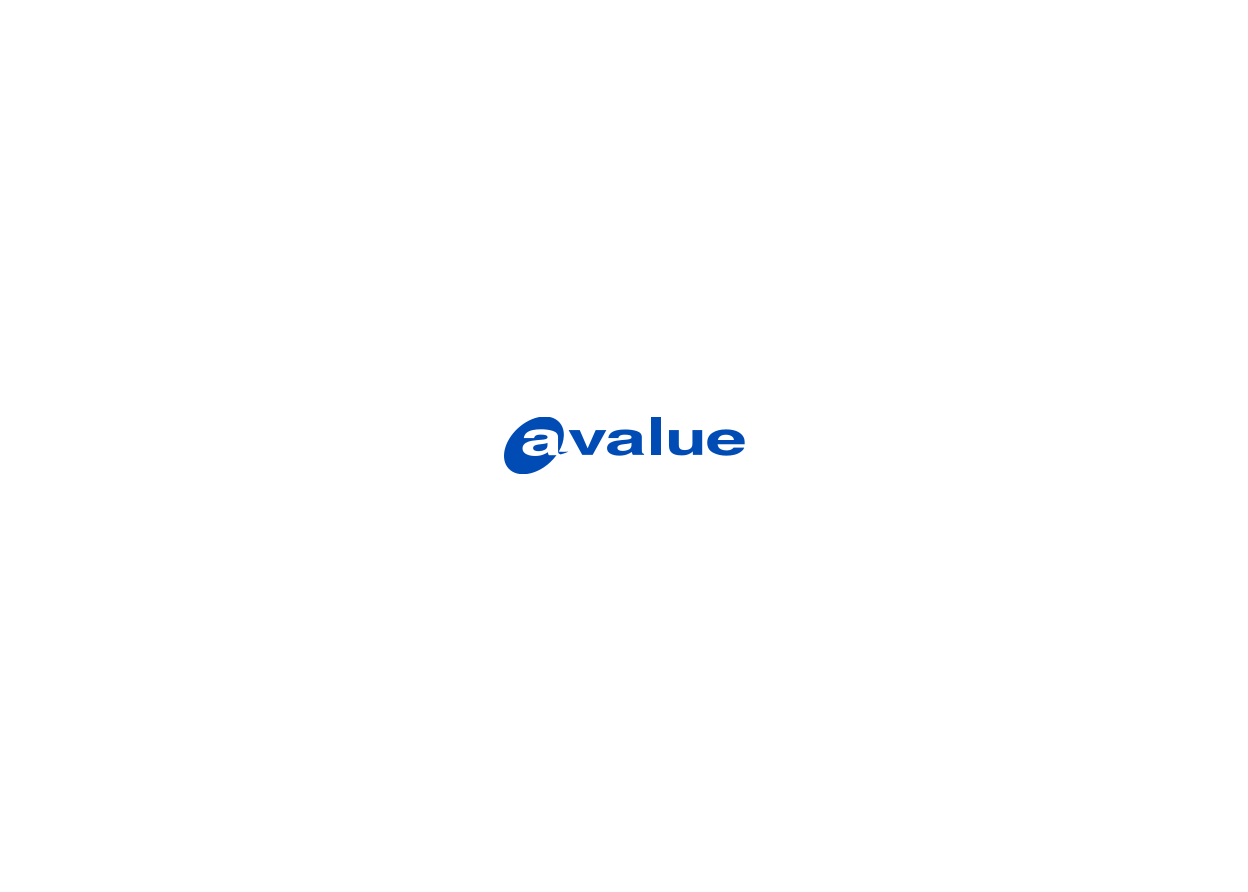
<svg xmlns="http://www.w3.org/2000/svg" width="1248" height="892" viewBox="0 0 1248 892">
  <rect width="100%" height="100%" fill="#fff"/>
  <image x="504" y="417" width="241" height="57" href="img/1.png"/>
</svg>
